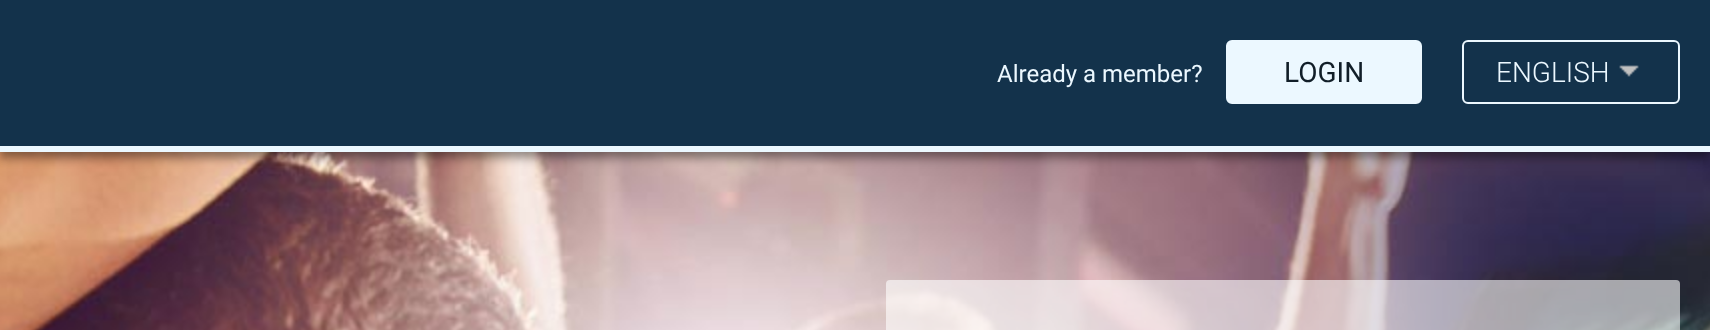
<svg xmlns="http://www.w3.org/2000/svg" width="1710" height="330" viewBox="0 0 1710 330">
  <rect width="100%" height="100%" fill="#fff"/>
  <image x="0" y="152" width="1710" height="178" href="img/1.png"/>
  <path d="M0 6h1710v152H0z" fill="#00000066" filter="blur(5px)"/>
  <path d="M0 0h1710v146H0z" fill="#13324b"/>
  <path d="M0 146h1710v6H0z" fill="#ecf8ff"/>
  <rect x="1227" y="41" width="194" height="62" rx="5" fill="#ecf8ff" stroke="#ecf8ff" stroke-width="2"/>
  <rect x="1463" y="41" width="216" height="62" rx="5" fill="none" stroke="#ecf8ff" stroke-width="2"/>
  <image x="1619" y="65" width="20" height="12" href="img/2.png"/>
  <rect x="886" y="280" width="794" height="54" rx="4" fill="#ffffff99"/>
  <text x="997" y="82" font-family="Roboto" font-size="24" fill="#ecf8ff">Already a member?</text>
  <text x="1284" y="82" font-family="Roboto" font-size="28" fill="#111e28">LOGIN</text>
  <text x="1496" y="82" font-family="Roboto" font-size="28" font-weight="300" fill="#ecf8ff">ENGLISH</text>
</svg>
